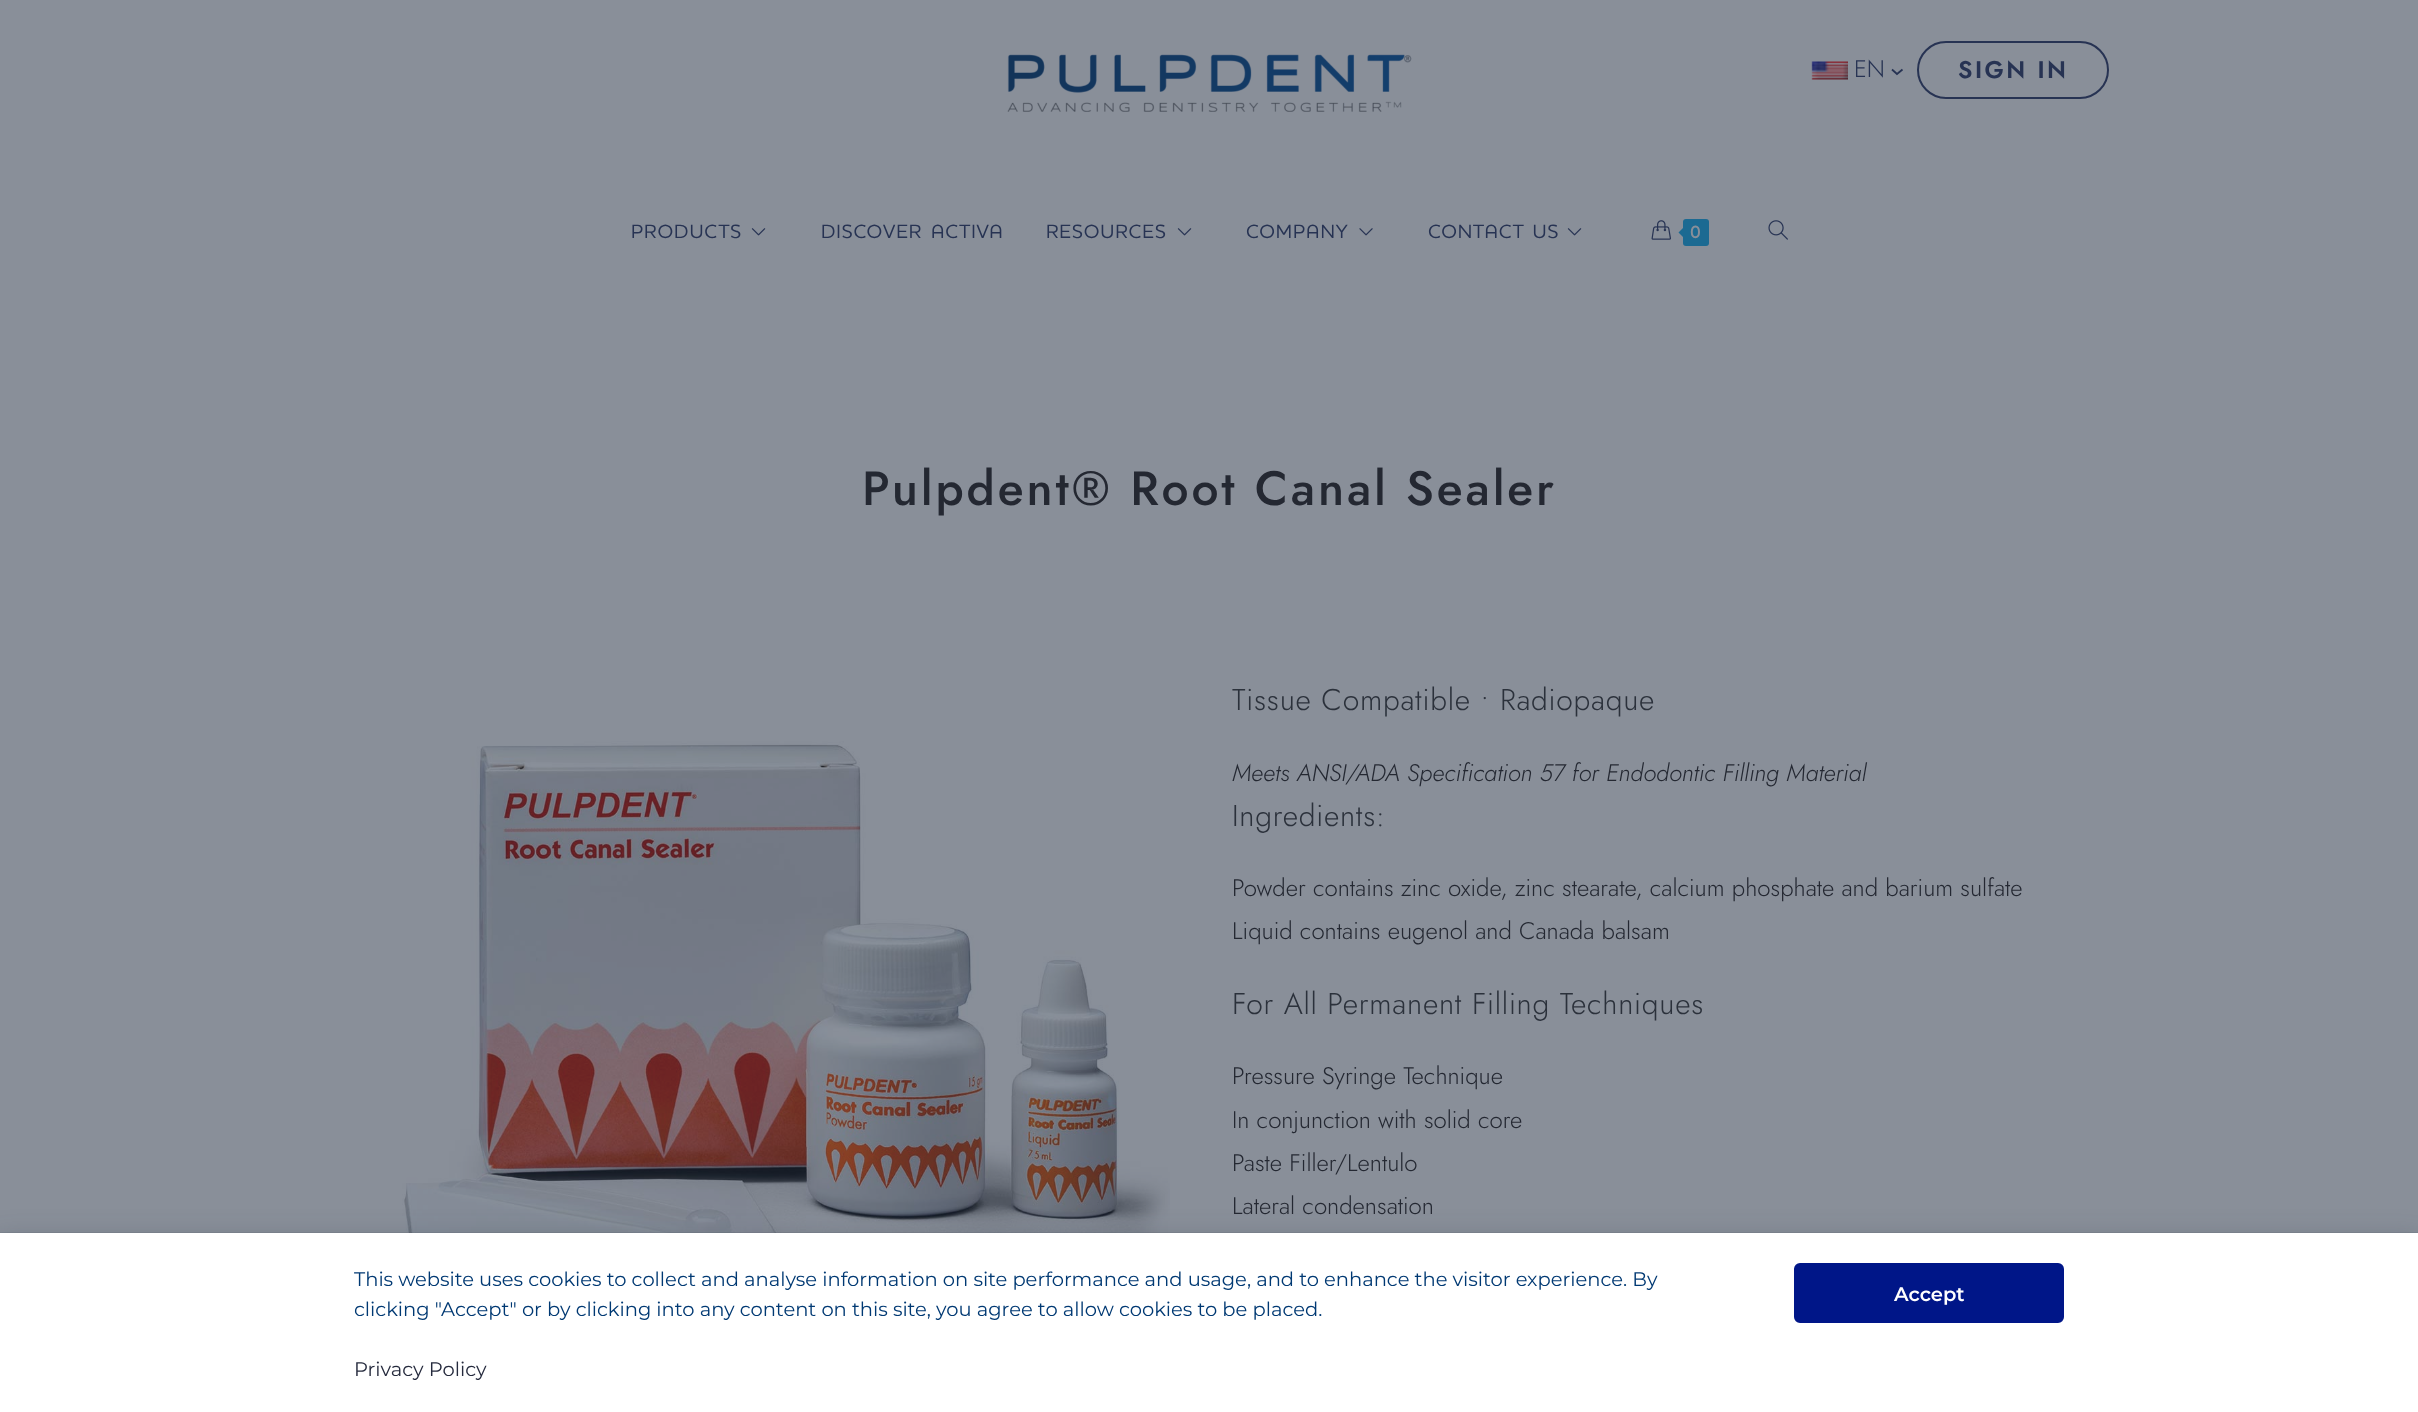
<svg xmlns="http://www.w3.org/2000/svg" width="2418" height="1412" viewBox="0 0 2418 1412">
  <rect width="100%" height="100%" fill="#898f99"/>
  <image x="1007" y="54" width="405" height="58" href="img/1.png"/>
  <image x="1811" y="61" width="37" height="19" href="img/2.png"/>
  <path d="M1892 69.5L1897 74L1902.5 69.5" fill="none" stroke="#273353" stroke-width="1.8"/>
  <rect x="1918" y="42" width="190" height="56" rx="28" fill="none" stroke="#273353" stroke-width="2"/>
  <image x="751" y="228" width="15" height="8" href="img/3.png"/>
  <image x="1177" y="228" width="15" height="8" href="img/3.png"/>
  <image x="1359" y="228" width="14" height="8" href="img/4.png"/>
  <image x="1567" y="228" width="15" height="8" href="img/3.png"/>
  <image x="1651" y="220" width="20" height="20" href="img/5.png"/>
  <rect x="1683" y="219" width="26" height="27" rx="3" fill="#1c6a92"/>
  <path d="M1686 225V240L1678.5 232.5Z" fill="#1c6a92"/>
  <image x="1768" y="220" width="20" height="20" href="img/6.png"/>
  <image x="402" y="741" width="768" height="492" href="img/7.png"/>
  <path d="M-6 1242h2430v162H-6z" fill="#242f424f" filter="blur(15px)"/>
  <path d="M-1 1233h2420v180H-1z" fill="none" stroke="#242f4214" stroke-width="2"/>
  <path d="M0 1233h2418v179H0z" fill="#fff"/>
  <rect x="1795" y="1264" width="268" height="58" rx="5" fill="#001688" stroke="#001688" stroke-width="2"/>
  <text x="1854" y="77" font-family="Jost" font-size="24" font-weight="300" fill="#273353">EN</text>
  <text x="1958" y="78" font-family="Jost" font-size="24" font-weight="600" letter-spacing="2.5" fill="#273353">SIGN IN</text>
  <g font-family="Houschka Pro" font-size="19.5" font-weight="500" letter-spacing="0.9" fill="#273353">
    <text x="631" y="238">PRODUCTS</text>
    <text x="821" y="238" word-spacing="3">DISCOVER ACTIVA</text>
    <text x="1046" y="238">RESOURCES</text>
    <text x="1246" y="238">COMPANY</text>
    <text x="1428" y="238" word-spacing="2">CONTACT US</text>
  </g>
  <text x="1690" y="238" font-family="Houschka Pro" font-size="18" font-weight="600" fill="#898f99">0</text>
  <text x="862" y="505" font-family="Jost" font-size="48" font-weight="500" letter-spacing="2.9" fill="#242832">Pulpdent® Root Canal Sealer</text>
  <text x="1232" y="710" font-family="Jost" font-size="30" font-weight="300" letter-spacing="0.75" fill="#2b313b">Tissue Compatible • Radiopaque</text>
  <text x="1232" y="781" font-family="Jost" font-size="24" font-weight="300" font-style="italic" fill="#242832">Meets ANSI/ADA Specification 57 for Endodontic Filling Material</text>
  <text x="1232" y="826" font-family="Jost" font-size="30" font-weight="300" letter-spacing="0.75" fill="#2b313b">Ingredients:</text>
  <g font-family="Jost" font-size="24" font-weight="300" fill="#242832">
    <text x="1232" y="896">Powder contains zinc oxide, zinc stearate, calcium phosphate and barium sulfate</text>
    <text x="1232" y="939">Liquid contains eugenol and Canada balsam</text>
  </g>
  <text x="1232" y="1014" font-family="Jost" font-size="30" font-weight="300" letter-spacing="0.75" fill="#2b313b">For All Permanent Filling Techniques</text>
  <g font-family="Jost" font-size="24" font-weight="300" fill="#242832">
    <text x="1232" y="1084">Pressure Syringe Technique</text>
    <text x="1232" y="1128">In conjunction with solid core</text>
    <text x="1232" y="1171">Paste Filler/Lentulo</text>
    <text x="1232" y="1214">Lateral condensation</text>
  </g>
  <g font-family="Montserrat" font-size="19.5" fill="#003973">
    <text x="354" y="1286">This website uses cookies to collect and analyse information on site performance and usage, and to enhance the visitor experience. By</text>
    <text x="354" y="1316">clicking "Accept" or by clicking into any content on this site, you agree to allow cookies to be placed.</text>
  </g>
  <text x="354" y="1376" font-family="Montserrat" font-size="19.5" fill="#252a3d">Privacy Policy</text>
  <text x="1894" y="1301" font-family="Montserrat" font-size="19.5" font-weight="600" fill="#fff">Accept</text>
</svg>
